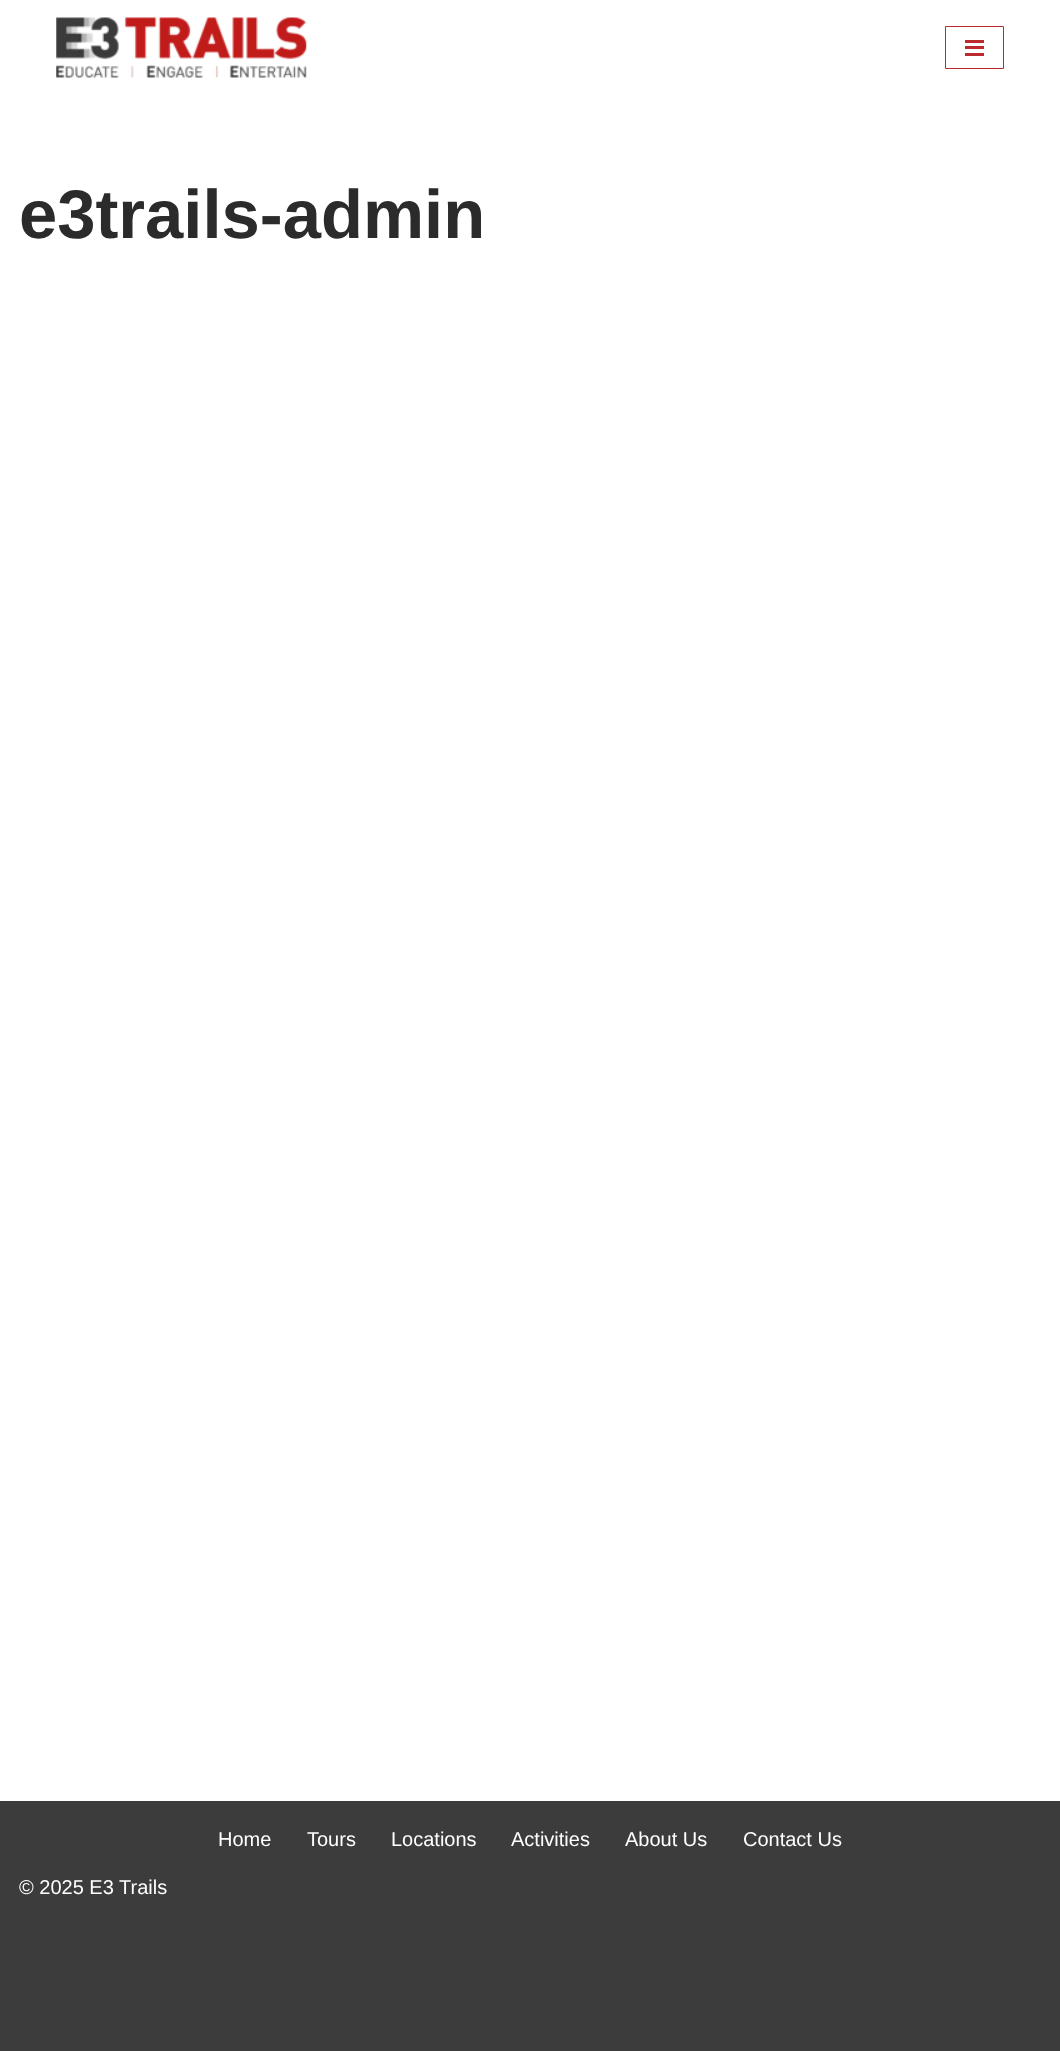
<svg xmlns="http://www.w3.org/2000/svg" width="1060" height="2051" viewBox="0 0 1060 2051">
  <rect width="100%" height="100%" fill="#fff"/>
  <image x="56" y="17" width="251" height="61" href="img/1.png"/>
  <path d="M945.5 26.5h58v42H945.5z" fill="none" stroke="#bb2a2f"/>
  <path d="M965 40h19v3H965z" fill="#bb2a2f"/>
  <path d="M965 46h19v3H965z" fill="#bb2a2f"/>
  <path d="M965 53h19v3H965z" fill="#bb2a2f"/>
  <path d="M0 1801h1060v250H0z" fill="#3c3c3c"/>
  <text x="19" y="238" font-family="Liberation Sans" font-size="68.75" font-weight="bold" fill="#2b2b2b">e3trails-admin</text>
  <g font-family="Liberation Sans" font-size="20" fill="#fff">
    <text x="218" y="1846">Home</text>
    <text x="307" y="1846">Tours</text>
    <text x="391" y="1846">Locations</text>
    <text x="511" y="1846">Activities</text>
    <text x="625" y="1846">About Us</text>
    <text x="743" y="1846">Contact Us</text>
    <text x="19" y="1894">© 2025 E3 Trails</text>
  </g>
</svg>
